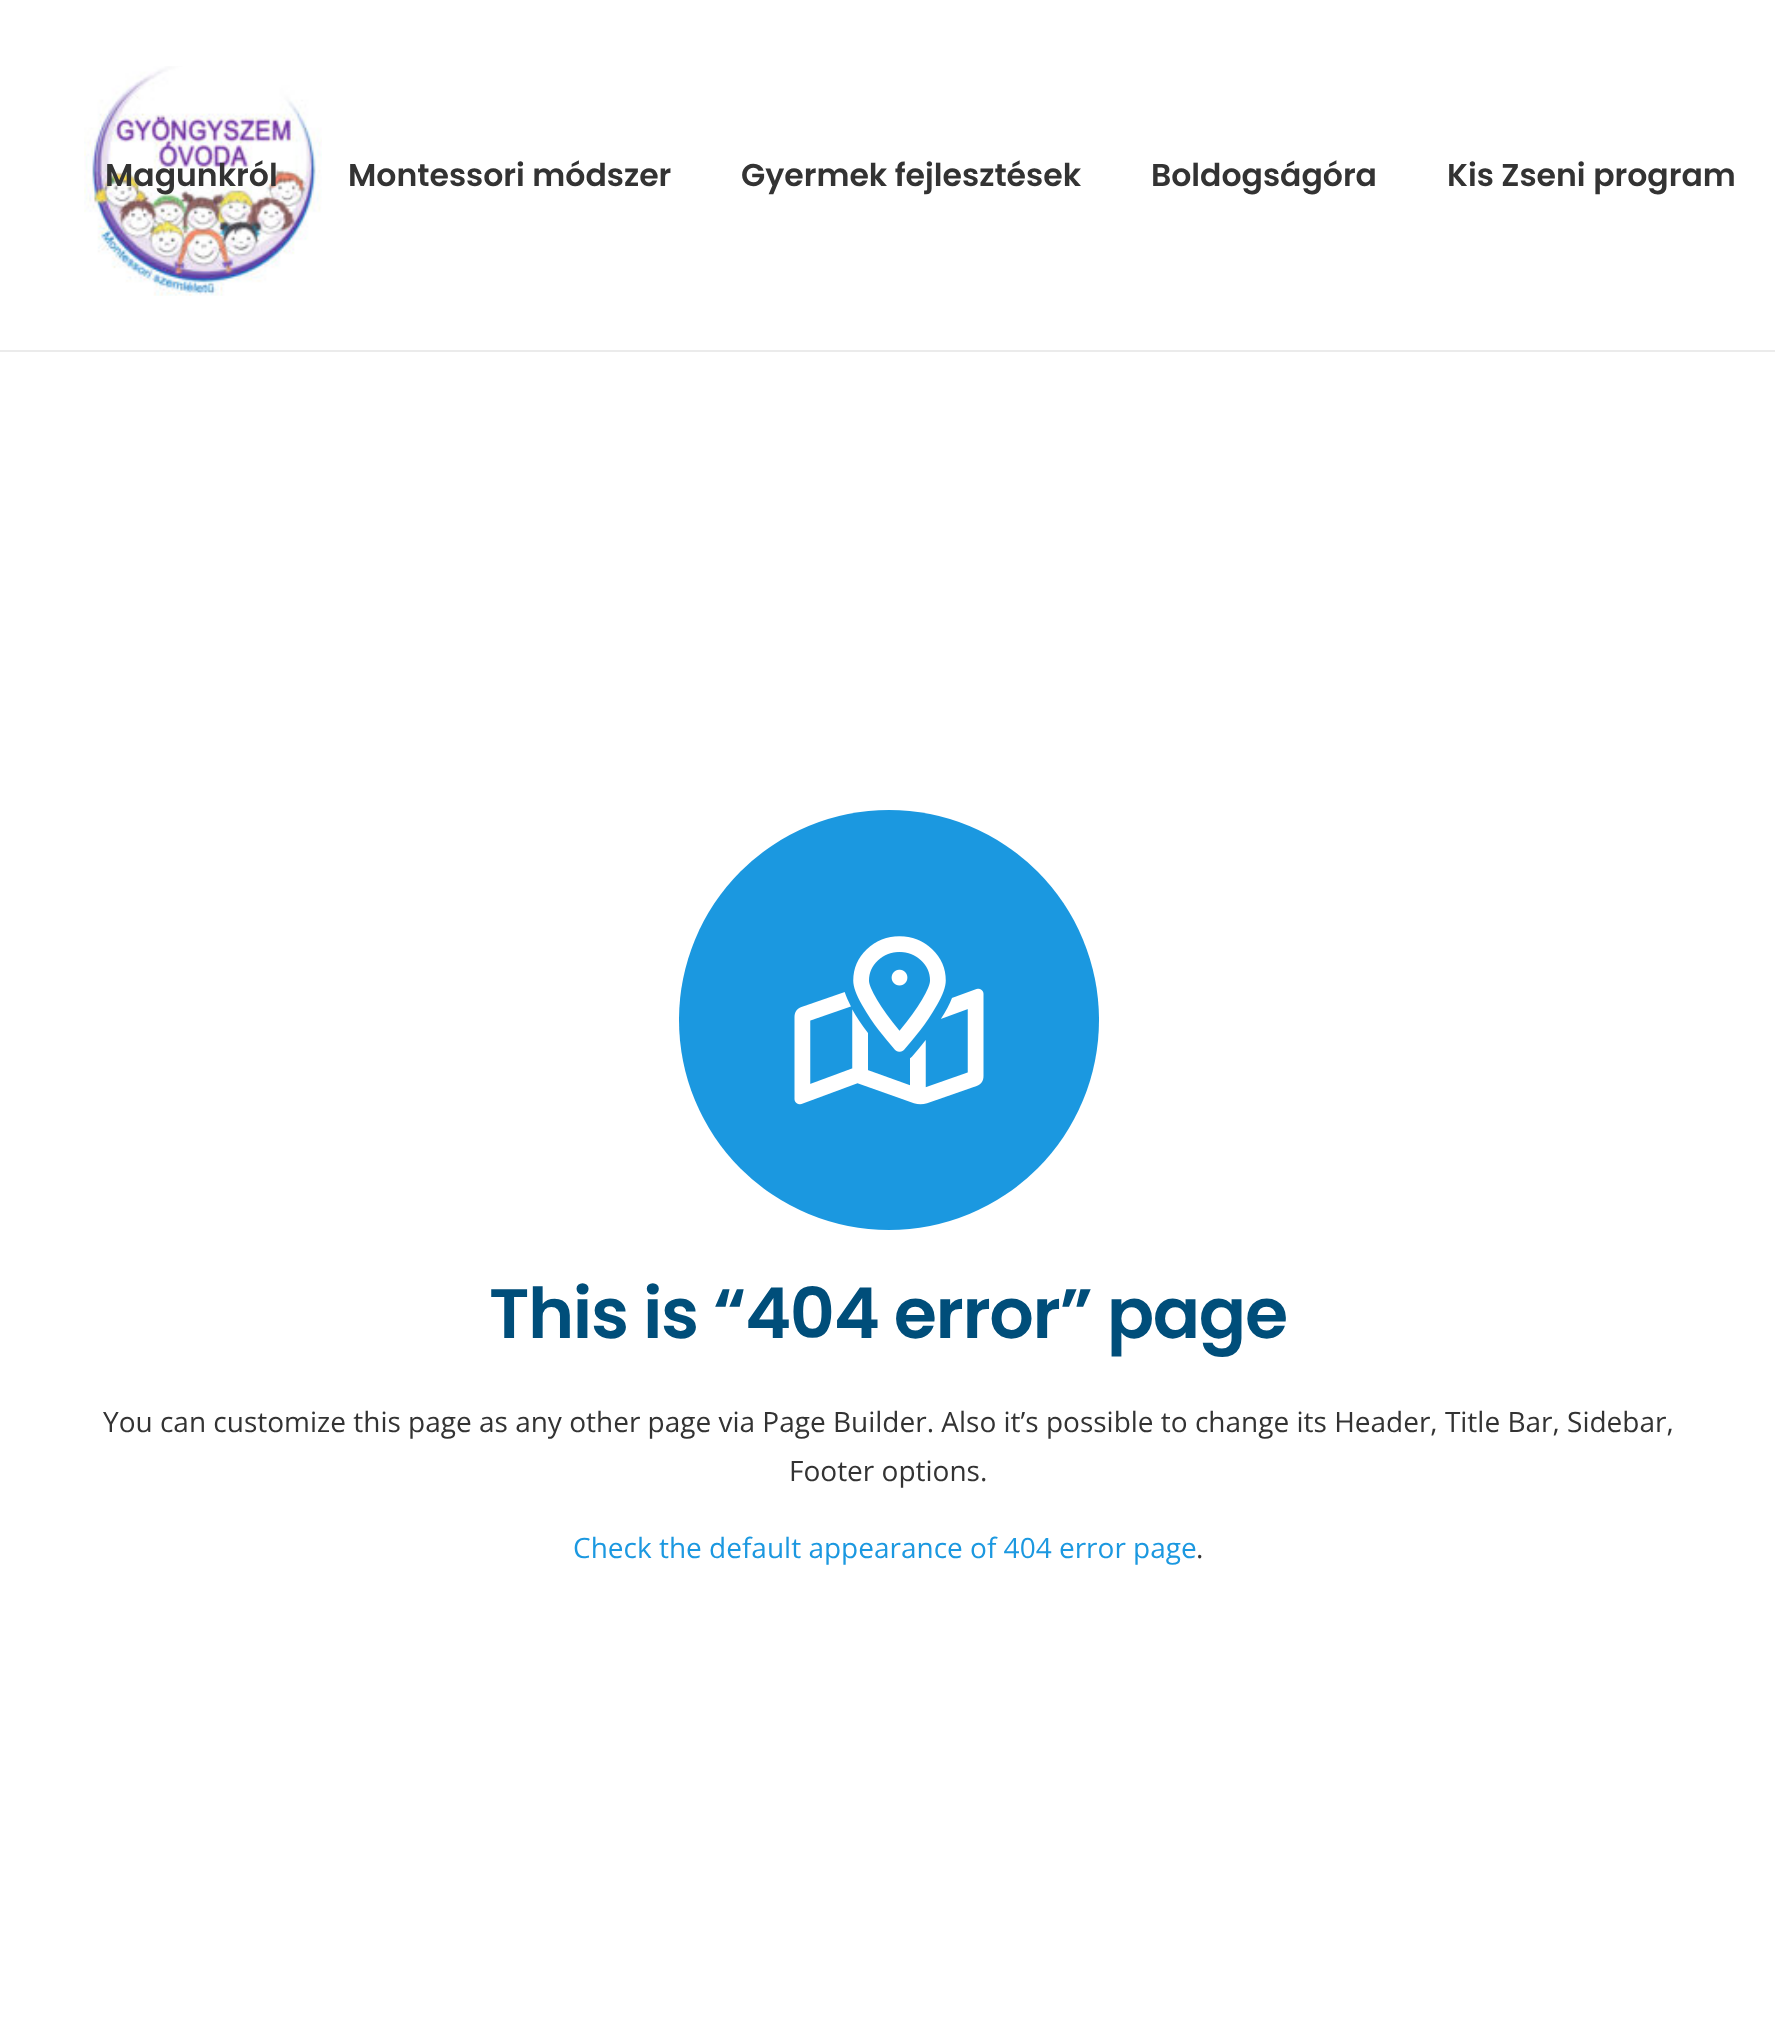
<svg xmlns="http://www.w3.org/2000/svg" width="1775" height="2031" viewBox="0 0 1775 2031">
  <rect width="100%" height="100%" fill="#fff"/>
  <path d="M0 350h1775v2H0z" fill="#ebebeb"/>
  <image x="84" y="66" width="238" height="230" href="img/1.png"/>
  <circle cx="889" cy="1020" r="210" fill="#1b98e0"/>
  <image x="794" y="936" width="190" height="169" href="img/2.png"/>
  <g font-family="Poppins" font-size="31.5" font-weight="600" fill="#333">
    <text x="105" y="186">Magunkról</text>
    <text x="348" y="186">Montessori módszer</text>
    <text x="741" y="186">Gyermek fejlesztések</text>
    <text x="1151" y="186">Boldogságóra</text>
    <text x="1447" y="186">Kis Zseni program</text>
  </g>
  <text x="489" y="1338" font-family="Poppins" font-size="70" font-weight="600" letter-spacing="-1.4" fill="#004e7a">This is “404 error” page</text>
  <g font-family="Open Sans" font-size="28" fill="#333">
    <text x="103" y="1432">You can customize this page as any other page via Page Builder. Also it’s possible to change its Header, Title Bar, Sidebar,</text>
    <text x="789" y="1481">Footer options.</text>
  </g>
  <text x="573" y="1558" font-family="Open Sans" font-size="28" fill="#1b98e0">Check the default appearance of 404 error page</text>
  <text x="1196" y="1558" font-family="Open Sans" font-size="28" fill="#333">.</text>
</svg>
